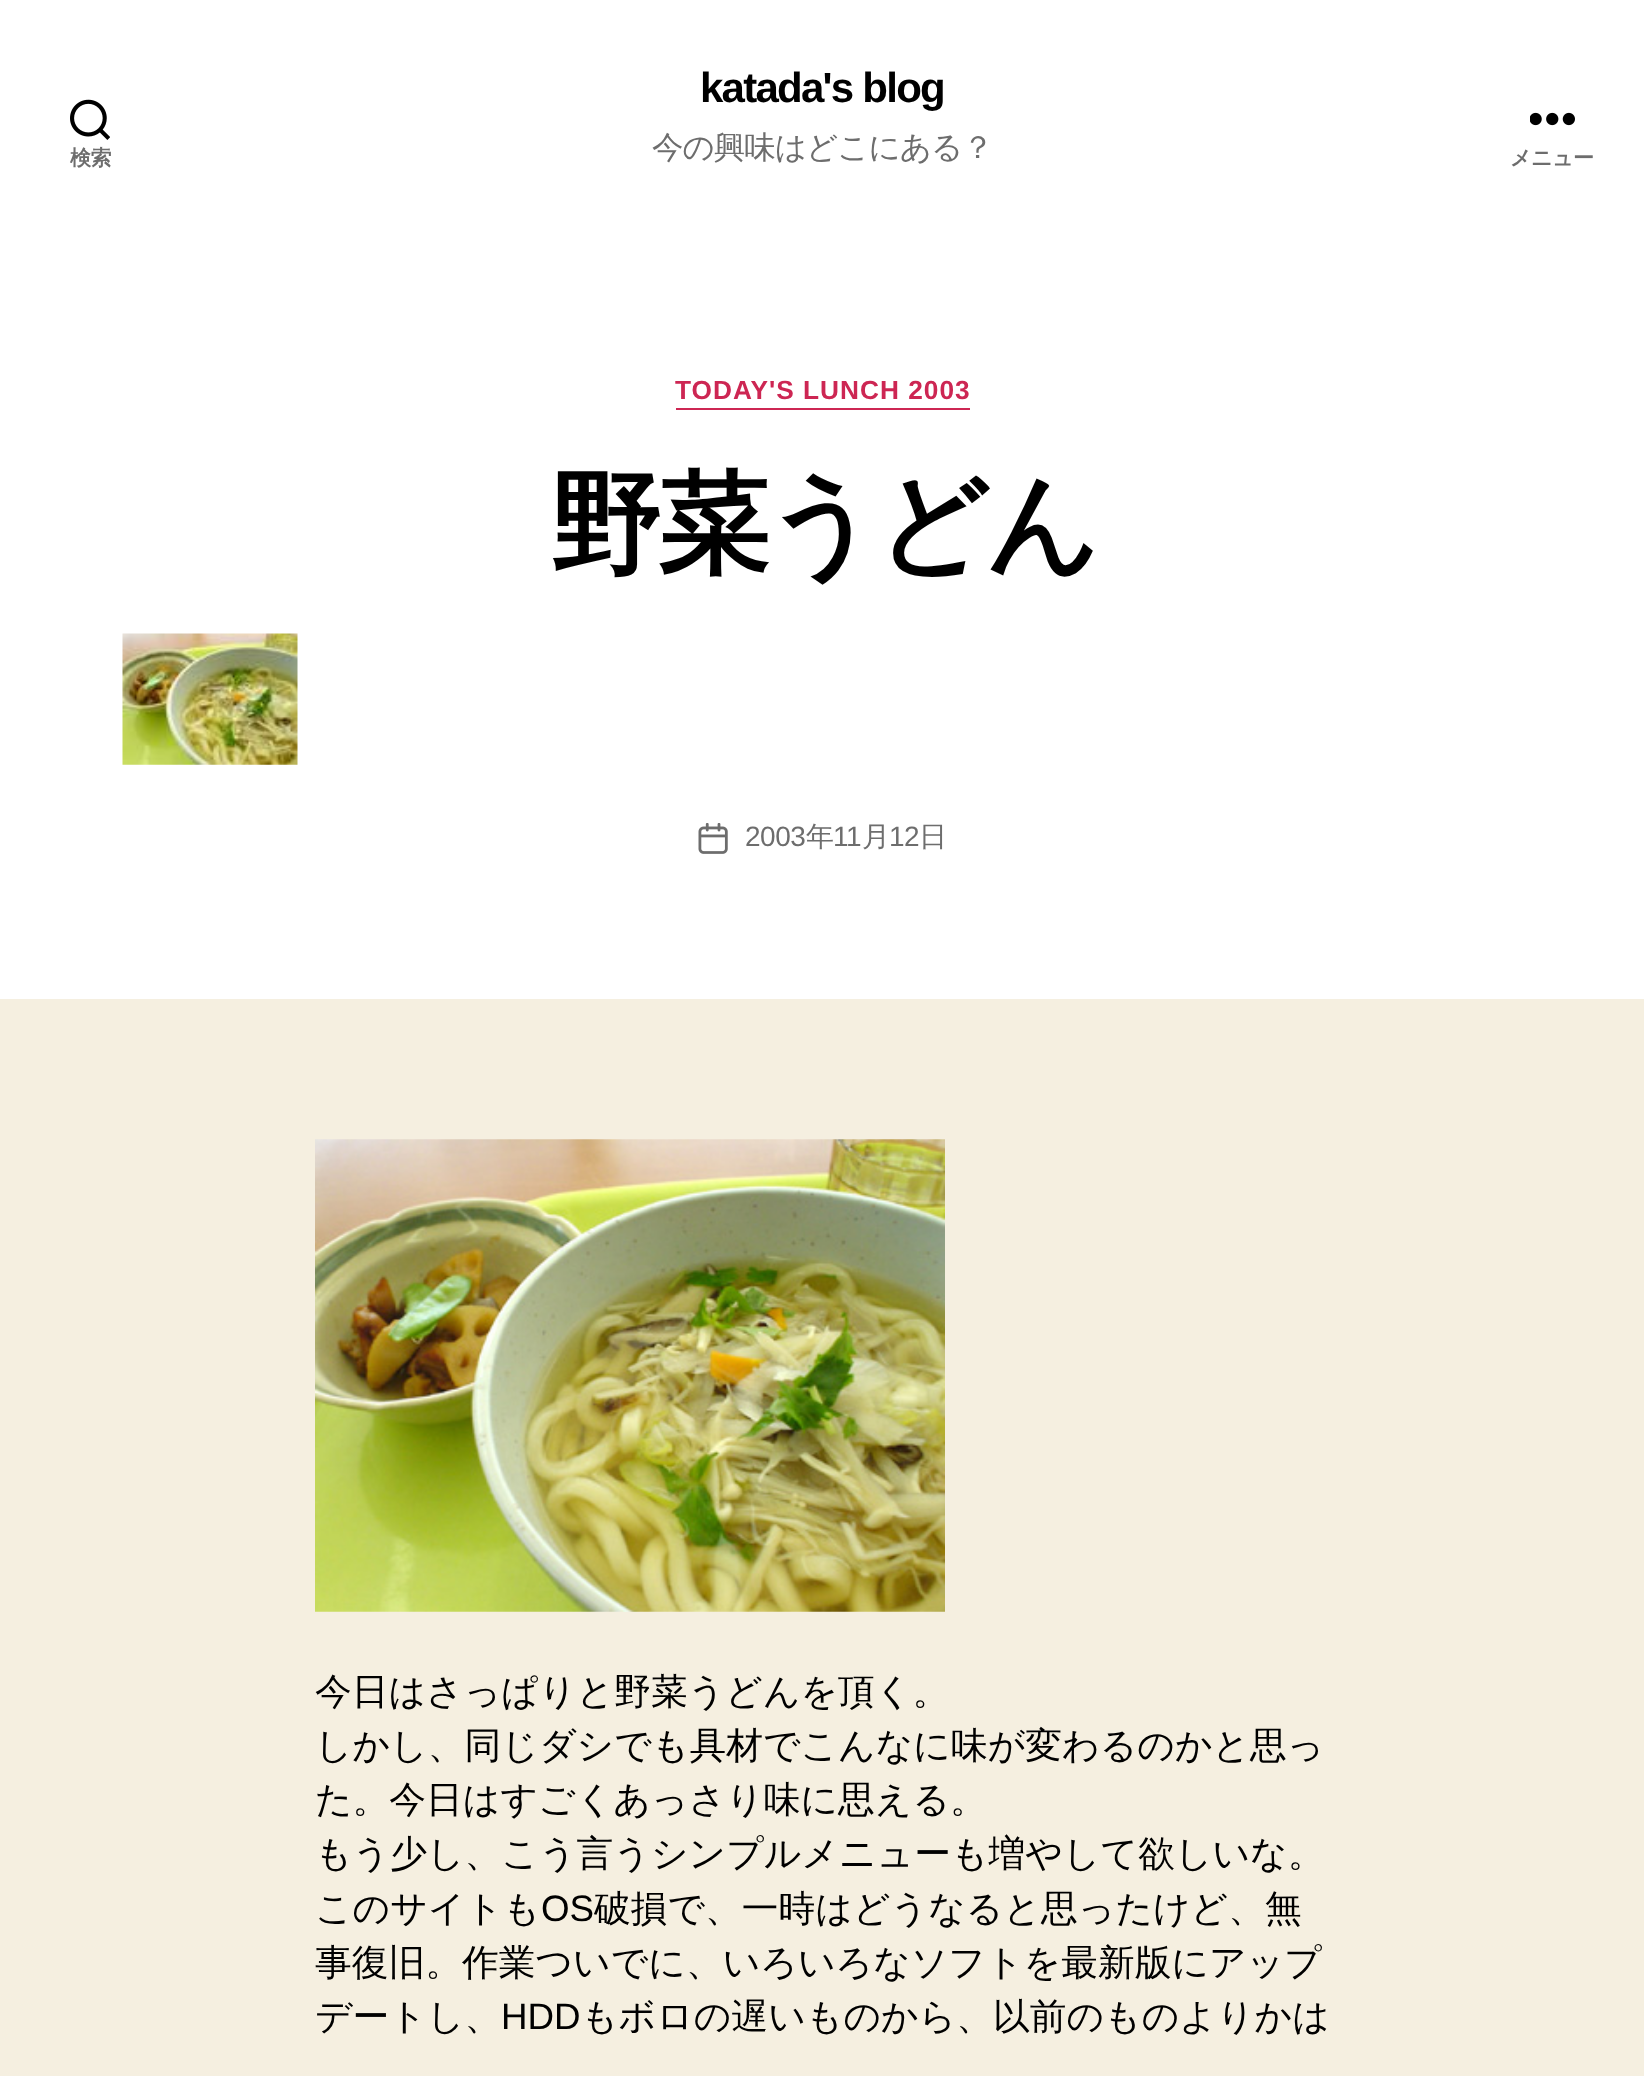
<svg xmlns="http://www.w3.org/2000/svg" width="1644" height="2076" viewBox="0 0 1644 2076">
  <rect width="100%" height="100%" fill="#f5efe0"/>
  <path d="M0 0h1644v999H0z" fill="#fff"/>
  <image x="70" y="99" width="40" height="41" href="img/1.png"/>
  <image x="1530" y="112" width="45" height="14" href="img/2.png"/>
  <path d="M676 408h294v2H676z" fill="#cd2653"/>
  <image x="122" y="633" width="176" height="132" href="img/3.png"/>
  <image x="698" y="823" width="30" height="31" href="img/4.png"/>
  <image x="315" y="1139" width="630" height="473" href="img/5.png"/>
  <text x="70" y="165" font-family="WenQuanYi Zen Hei" font-size="21" font-weight="bold" letter-spacing="-0.5" fill="#6d6d6d">検索</text>
  <text x="700" y="102" font-family="Liberation Sans" font-size="42" font-weight="bold" letter-spacing="-1.75" fill="#000">katada's blog</text>
  <text x="652" y="158" font-family="WenQuanYi Zen Hei" font-size="31.5" font-weight="500" letter-spacing="-1" fill="#6d6d6d">今の興味はどこにある？</text>
  <text x="1510" y="165" font-family="WenQuanYi Zen Hei" font-size="21" font-weight="bold" letter-spacing="-0.5" fill="#6d6d6d">メニュー</text>
  <text x="675" y="399" font-family="Liberation Sans" font-size="26.25" font-weight="bold" letter-spacing="1" fill="#cd2653">TODAY'S LUNCH 2003</text>
  <text x="550" y="563" font-family="WenQuanYi Zen Hei" font-size="112" font-weight="bold" letter-spacing="-4.5" fill="#000">野菜うどん</text>
  <text x="745" y="846" font-family="Liberation Sans" font-size="28" letter-spacing="-0.5" fill="#6d6d6d">2003</text>
  <text x="806" y="846" font-family="WenQuanYi Zen Hei" font-size="28" font-weight="500" letter-spacing="-0.5" fill="#6d6d6d">年</text>
  <text x="833" y="846" font-family="Liberation Sans" font-size="28" letter-spacing="-0.5" fill="#6d6d6d">11</text>
  <text x="862" y="846" font-family="WenQuanYi Zen Hei" font-size="28" font-weight="500" letter-spacing="-0.5" fill="#6d6d6d">月</text>
  <text x="889" y="846" font-family="Liberation Sans" font-size="28" letter-spacing="-0.5" fill="#6d6d6d">12</text>
  <text x="919" y="846" font-family="WenQuanYi Zen Hei" font-size="28" font-weight="500" letter-spacing="-0.5" fill="#6d6d6d">日</text>
  <g font-family="WenQuanYi Zen Hei" font-size="36.75" font-weight="500" fill="#000">
    <text x="315" y="1704">今日はさっぱりと野菜うどんを頂く。</text>
    <text x="315" y="1758">しかし、同じダシでも具材でこんなに味が変わるのかと思っ</text>
    <text x="315" y="1812">た。今日はすごくあっさり味に思える。</text>
    <text x="315" y="1866">もう少し、こう言うシンプルメニューも増やして欲しいな。</text>
    <text x="315" y="1921">このサイトも</text>
  </g>
  <text x="541" y="1921" font-family="Liberation Sans" font-size="36.75" fill="#000">OS</text>
  <g font-family="WenQuanYi Zen Hei" font-size="36.75" font-weight="500" fill="#000">
    <text x="594" y="1921">破損で、一時はどうなると思ったけど、無</text>
    <text x="315" y="1975">事復旧。作業ついでに、いろいろなソフトを最新版にアップ</text>
    <text x="315" y="2029">デートし、</text>
  </g>
  <text x="501" y="2029" font-family="Liberation Sans" font-size="36.75" fill="#000">HDD</text>
  <text x="581" y="2029" font-family="WenQuanYi Zen Hei" font-size="36.75" font-weight="500" fill="#000">もボロの遅いものから、以前のものよりかは</text>
</svg>
